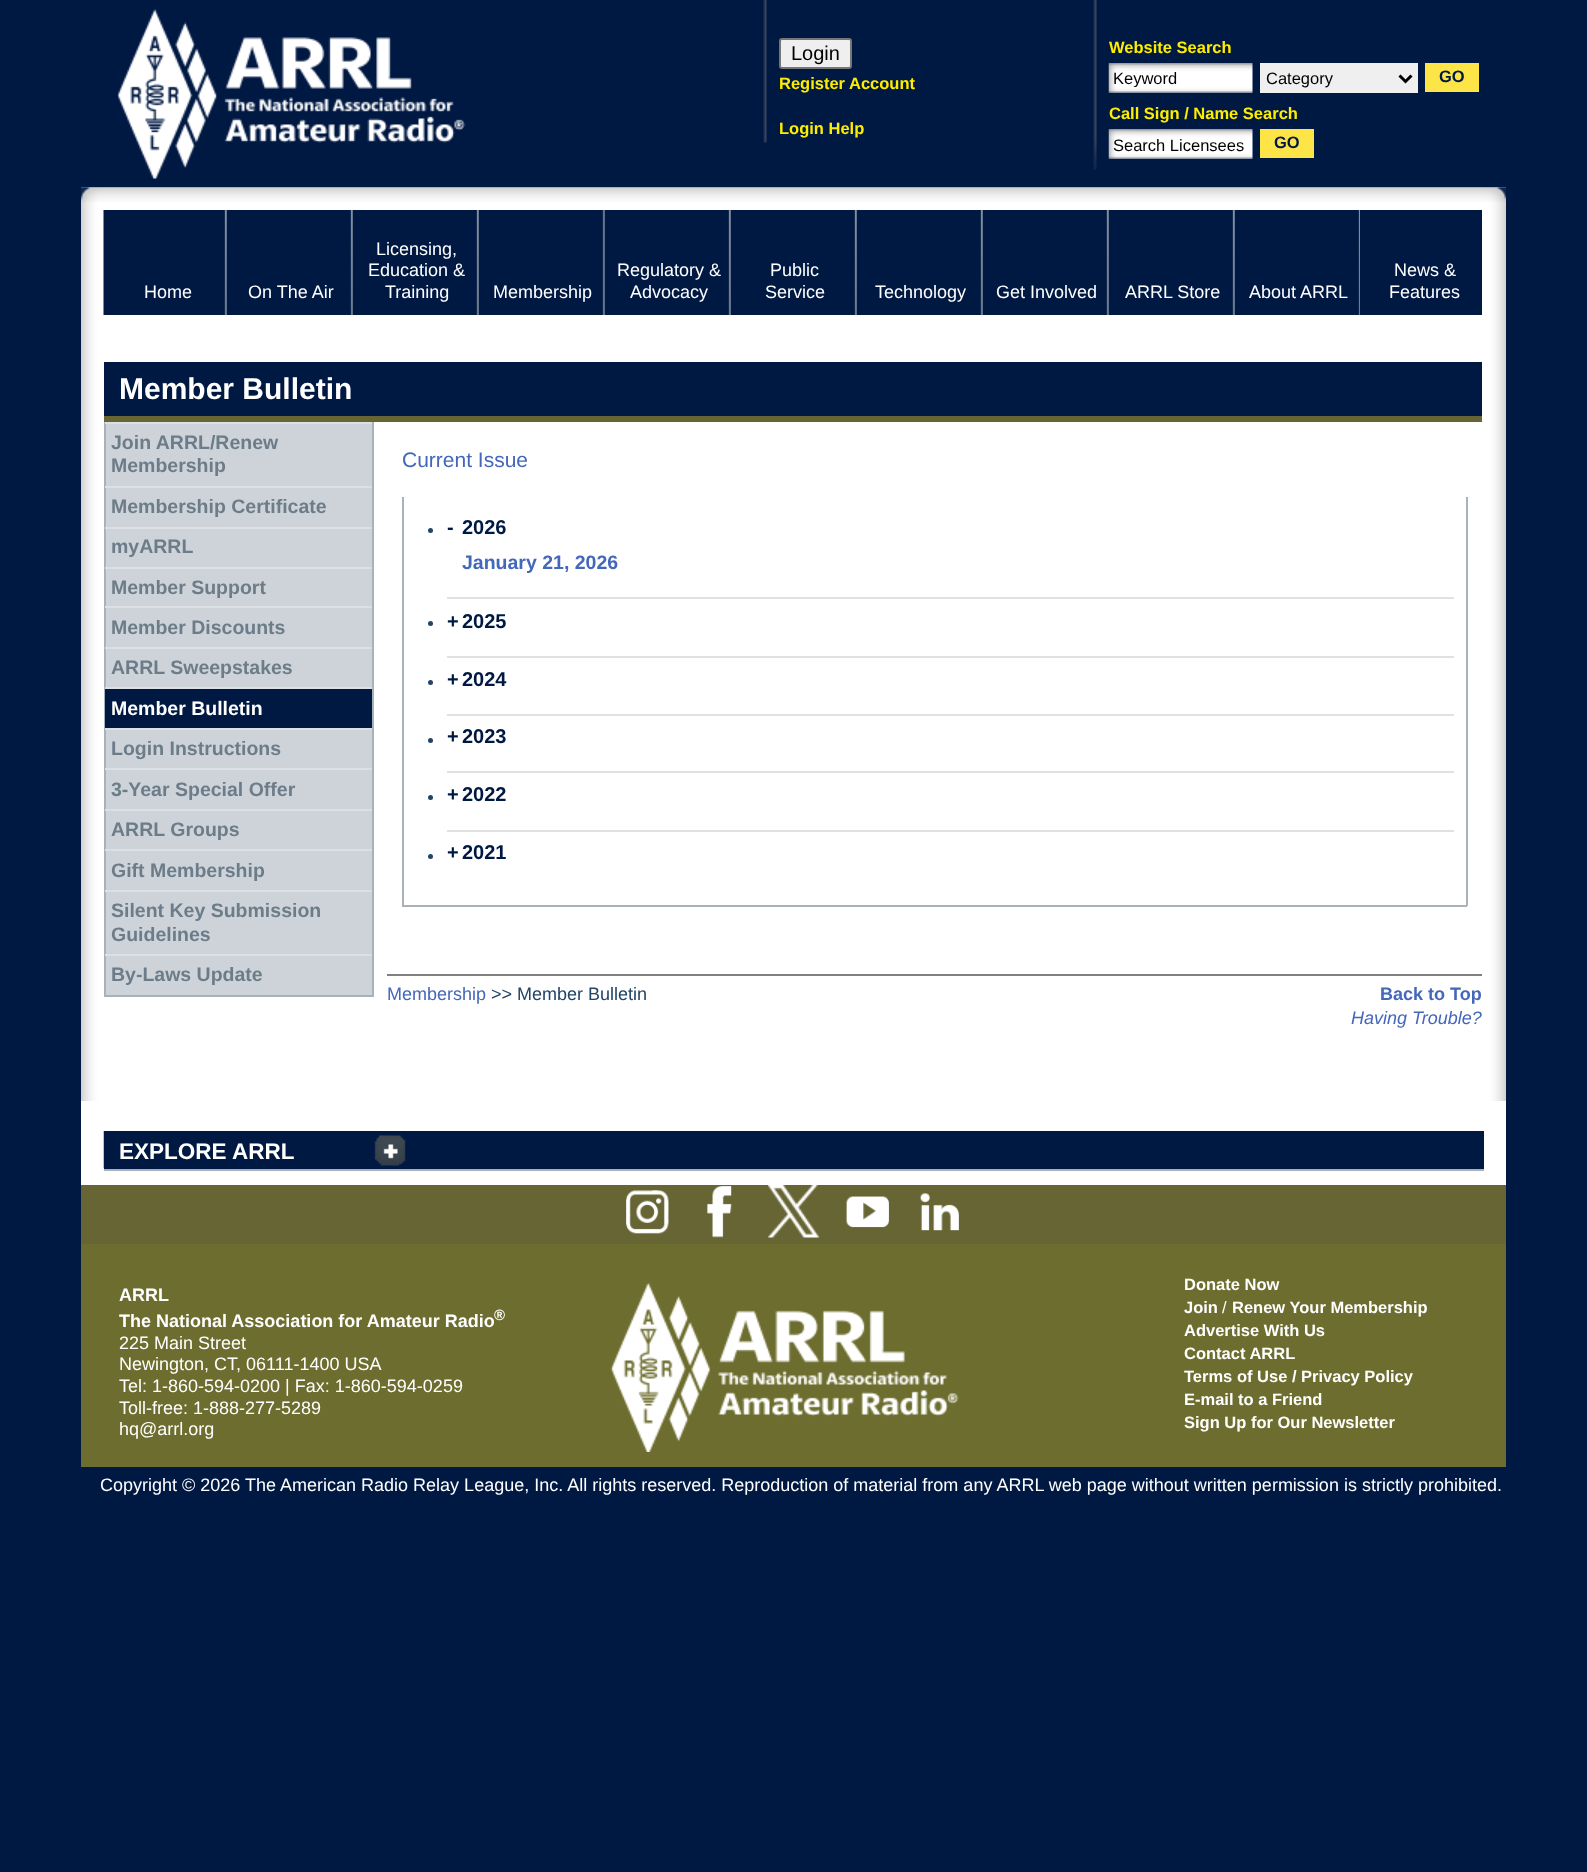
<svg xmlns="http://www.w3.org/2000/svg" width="1587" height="1872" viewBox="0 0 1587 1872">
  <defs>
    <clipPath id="clip1"><path d="M1113 69h135v18H1113z"/></clipPath>
  </defs>
  <rect width="100%" height="100%" fill="#001943"/>
  <image x="117" y="9" width="349" height="170" href="img/1.png"/>
  <image x="763" y="0" width="4" height="143" href="img/2.png"/>
  <rect x="780" y="39" width="71" height="29" rx="2" fill="#efefef" stroke="#767676" stroke-width="2"/>
  <image x="1093" y="0" width="4" height="170" href="img/3.png"/>
  <image x="1108" y="63" width="145" height="30" href="img/4.png"/>
  <path d="M1260 63h158v30H1260z" fill="#efefef"/>
  <path d="M1399.5 75.5L1405.5 81.5L1411.5 75.5" fill="none" stroke="#000" stroke-width="3"/>
  <path d="M1425 63h54v29H1425z" fill="#fde547"/>
  <image x="1108" y="129" width="145" height="30" href="img/4.png"/>
  <path d="M1260 129h54v29H1260z" fill="#fde547"/>
  <image x="81" y="187" width="1425" height="914" href="img/5.png"/>
  <image x="81" y="187" width="1425" height="15" href="img/6.png"/>
  <image x="103" y="210" width="124" height="105" href="img/7.png"/>
  <image x="226" y="210" width="127" height="105" href="img/8.png"/>
  <image x="352" y="210" width="127" height="105" href="img/9.png"/>
  <image x="478" y="210" width="127" height="105" href="img/10.png"/>
  <image x="604" y="210" width="127" height="105" href="img/11.png"/>
  <image x="730" y="210" width="127" height="105" href="img/9.png"/>
  <image x="856" y="210" width="127" height="105" href="img/9.png"/>
  <image x="982" y="210" width="127" height="105" href="img/9.png"/>
  <image x="1108" y="210" width="127" height="105" href="img/9.png"/>
  <image x="1234" y="210" width="126" height="105" href="img/12.png"/>
  <path d="M1360 210h122v105H1360z" fill="#001943"/>
  <path d="M104 362h1378v54H104z" fill="#001943"/>
  <path d="M104 416h1378v6H104z" fill="#676534"/>
  <path d="M106 424h266v571H106z" fill="#cdd3d9"/>
  <path d="M372 422h2v574H372z" fill="#a7b2ba"/>
  <path d="M104 995h270v2H104z" fill="#a7b2ba"/>
  <path d="M104 422h2v574H104z" fill="#a7b2ba"/>
  <path d="M105 422h267v2H105z" fill="#dce0e4"/>
  <path d="M105 486h267v2H105z" fill="#dce0e4"/>
  <path d="M105 527h267v2H105z" fill="#dce0e4"/>
  <path d="M105 567h267v2H105z" fill="#dce0e4"/>
  <path d="M105 606h267v2H105z" fill="#dce0e4"/>
  <path d="M105 647h267v2H105z" fill="#dce0e4"/>
  <path d="M105 687h267v2H105z" fill="#dce0e4"/>
  <path d="M105 689h267v39H105z" fill="#001943"/>
  <path d="M105 728h267v2H105z" fill="#dce0e4"/>
  <path d="M105 768h267v2H105z" fill="#dce0e4"/>
  <path d="M105 809h267v2H105z" fill="#dce0e4"/>
  <path d="M105 849h267v2H105z" fill="#dce0e4"/>
  <path d="M105 890h267v2H105z" fill="#dce0e4"/>
  <path d="M105 954h267v2H105z" fill="#dce0e4"/>
  <path d="M1466 497h2v409H1466z" fill="#a7b2ba"/>
  <path d="M402 905h1065v2H402z" fill="#a7b2ba"/>
  <path d="M402 497h2v409H402z" fill="#a7b2ba"/>
  <circle cx="430.5" cy="530.5" r="2.5" fill="#246"/>
  <path d="M447 597h1007v2H447z" fill="#dfe2e5"/>
  <circle cx="430.5" cy="623.5" r="2.5" fill="#246"/>
  <path d="M447 656h1007v2H447z" fill="#dfe2e5"/>
  <circle cx="430.5" cy="682.5" r="2.5" fill="#246"/>
  <path d="M447 714h1007v2H447z" fill="#dfe2e5"/>
  <circle cx="430.5" cy="740.5" r="2.5" fill="#246"/>
  <path d="M447 771h1007v2H447z" fill="#dfe2e5"/>
  <circle cx="430.5" cy="797.5" r="2.5" fill="#246"/>
  <path d="M447 830h1007v2H447z" fill="#dfe2e5"/>
  <circle cx="430.5" cy="856.5" r="2.5" fill="#246"/>
  <path d="M387 974h1095v2H387z" fill="#808080"/>
  <path d="M81 1101h1425v84H81z" fill="#fff"/>
  <path d="M104 1131h1380v38H104z" fill="#001943"/>
  <path d="M104 1169h1380v2H104z" fill="#a7b2ba"/>
  <image x="103" y="1131" width="303" height="38" href="img/13.png"/>
  <path d="M81 1185h1425v59H81z" fill="#676534"/>
  <image x="626" y="1190" width="43" height="44" href="img/14.png"/>
  <image x="707" y="1186" width="25" height="52" href="img/15.png"/>
  <image x="768" y="1185" width="51" height="53" href="img/16.png"/>
  <image x="846" y="1196" width="43" height="32" href="img/17.png"/>
  <image x="920" y="1193" width="39" height="38" href="img/18.png"/>
  <path d="M81 1244h1425v223H81z" fill="#6d6d2f"/>
  <image x="610" y="1282" width="349" height="170" href="img/19.png"/>
  <text x="791" y="60" font-family="Liberation Sans" font-size="20" fill="#000">Login</text>
  <g font-family="Liberation Sans" font-size="16.5" font-weight="bold" fill="#ffed01">
    <text x="779" y="89">Register Account</text>
    <text x="779" y="134">Login Help</text>
    <text x="1109" y="53">Website Search</text>
  </g>
  <g clip-path="url(#clip1)">
    <text x="1113" y="84" font-family="Liberation Sans" font-size="16.5" fill="#000">Keyword</text>
  </g>
  <text x="1266" y="84" font-family="Liberation Sans" font-size="16.5" fill="#000">Category</text>
  <text x="1439" y="82" font-family="Liberation Sans" font-size="16.5" font-weight="bold" fill="#001943">GO</text>
  <text x="1109" y="119" font-family="Liberation Sans" font-size="16.5" font-weight="bold" fill="#ffed01">Call Sign / Name Search</text>
  <text x="1113" y="151" font-family="Liberation Sans" font-size="16.5" fill="#000">Search Licensees</text>
  <text x="1274" y="148" font-family="Liberation Sans" font-size="16.5" font-weight="bold" fill="#001943">GO</text>
  <g font-family="Liberation Sans" font-size="18" fill="#fff">
    <text x="144" y="298">Home</text>
    <text x="248" y="298">On The Air</text>
    <text x="376" y="255">Licensing,</text>
    <text x="368" y="276">Education &amp;</text>
    <text x="385" y="298">Training</text>
    <text x="493" y="298">Membership</text>
    <text x="617" y="276">Regulatory &amp;</text>
    <text x="630" y="298">Advocacy</text>
    <text x="770" y="276">Public</text>
    <text x="765" y="298">Service</text>
    <text x="875" y="298">Technology</text>
    <text x="996" y="298">Get Involved</text>
    <text x="1125" y="298">ARRL Store</text>
    <text x="1249" y="298">About ARRL</text>
    <text x="1394" y="276">News &amp;</text>
    <text x="1389" y="298">Features</text>
  </g>
  <text x="119" y="399" font-family="Liberation Sans" font-size="30" font-weight="bold" fill="#fff">Member Bulletin</text>
  <g font-family="Liberation Sans" font-size="19.5" font-weight="bold" fill="#6c7c88">
    <text x="111" y="449">Join ARRL/Renew</text>
    <text x="111" y="472">Membership</text>
    <text x="111" y="513">Membership Certificate</text>
    <text x="111" y="553">myARRL</text>
    <text x="111" y="594">Member Support</text>
    <text x="111" y="634">Member Discounts</text>
    <text x="111" y="674">ARRL Sweepstakes</text>
  </g>
  <text x="111" y="715" font-family="Liberation Sans" font-size="19.5" font-weight="bold" fill="#fff">Member Bulletin</text>
  <g font-family="Liberation Sans" font-size="19.5" font-weight="bold" fill="#6c7c88">
    <text x="111" y="755">Login Instructions</text>
    <text x="111" y="796">3-Year Special Offer</text>
    <text x="111" y="836">ARRL Groups</text>
    <text x="111" y="877">Gift Membership</text>
    <text x="111" y="917">Silent Key Submission</text>
    <text x="111" y="941">Guidelines</text>
    <text x="111" y="981">By-Laws Update</text>
  </g>
  <text x="402" y="467" font-family="Liberation Sans" font-size="21" fill="#46b">Current Issue</text>
  <g font-family="Liberation Sans" font-size="20" font-weight="bold" fill="#001943">
    <text x="447" y="534">-</text>
    <text x="462" y="534">2026</text>
  </g>
  <text x="462" y="569" font-family="Liberation Sans" font-size="19.5" font-weight="bold" fill="#46b">January 21, 2026</text>
  <g font-family="Liberation Sans" font-size="20" font-weight="bold" fill="#001943">
    <text x="447" y="628">+</text>
    <text x="462" y="628">2025</text>
    <text x="447" y="686">+</text>
    <text x="462" y="686">2024</text>
    <text x="447" y="743">+</text>
    <text x="462" y="743">2023</text>
    <text x="447" y="801">+</text>
    <text x="462" y="801">2022</text>
    <text x="447" y="859">+</text>
    <text x="462" y="859">2021</text>
  </g>
  <text x="387" y="1000" font-family="Liberation Sans" font-size="18" fill="#46b">Membership</text>
  <text x="491" y="1000" font-family="Liberation Sans" font-size="18" fill="#246">&gt;&gt; Member Bulletin</text>
  <text x="1380" y="1000" font-family="Liberation Sans" font-size="18" font-weight="bold" fill="#46b">Back to Top</text>
  <text x="1351" y="1024" font-family="Liberation Sans" font-size="18" font-style="italic" fill="#46b">Having Trouble?</text>
  <text x="119" y="1159" font-family="Liberation Sans" font-size="22.5" font-weight="bold" fill="#fff">EXPLORE ARRL</text>
  <g font-family="Liberation Sans" font-size="18" font-weight="bold" fill="#fff">
    <text x="119" y="1301">ARRL</text>
    <text x="119" y="1327">The National Association for Amateur Radio</text>
  </g>
  <text x="494" y="1320" font-family="Liberation Sans" font-size="15" font-weight="bold" fill="#fff">®</text>
  <g font-family="Liberation Sans" font-size="18" fill="#fff">
    <text x="119" y="1349">225 Main Street</text>
    <text x="119" y="1370">Newington, CT, 06111-1400 USA</text>
    <text x="119" y="1392">Tel: 1-860-594-0200 | Fax: 1-860-594-0259</text>
    <text x="119" y="1414">Toll-free: 1-888-277-5289</text>
    <text x="119" y="1435">hq@arrl.org</text>
  </g>
  <g font-family="Liberation Sans" font-size="16.5" font-weight="bold" fill="#fff">
    <text x="1184" y="1290">Donate Now</text>
    <text x="1184" y="1313">Join</text>
  </g>
  <text x="1222" y="1313" font-family="Liberation Sans" font-size="16.5" fill="#fff">/</text>
  <g font-family="Liberation Sans" font-size="16.5" font-weight="bold" fill="#fff">
    <text x="1232" y="1313">Renew Your Membership</text>
    <text x="1184" y="1336">Advertise With Us</text>
    <text x="1184" y="1359">Contact ARRL</text>
    <text x="1184" y="1382">Terms of Use / Privacy Policy</text>
    <text x="1184" y="1405">E-mail to a Friend</text>
    <text x="1184" y="1428">Sign Up for Our Newsletter</text>
  </g>
  <text x="100" y="1491" font-family="Liberation Sans" font-size="18" fill="#fff">Copyright © 2026 The American Radio Relay League, Inc. All rights reserved. Reproduction of material from any ARRL web page without written permission is strictly prohibited.</text>
</svg>
